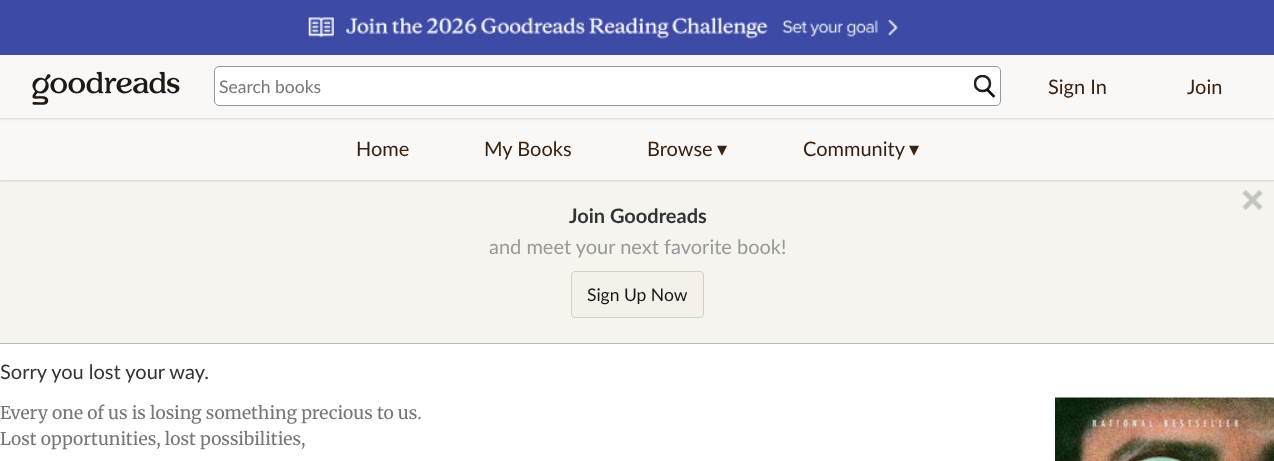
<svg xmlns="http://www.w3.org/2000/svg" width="1274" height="461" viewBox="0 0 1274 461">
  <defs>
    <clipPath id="clip1"><path d="M974 75h22v24H974z"/></clipPath>
  </defs>
  <rect width="100%" height="100%" fill="#fff"/>
  <path d="M0 0h1274v55H0z" fill="#3d4aa6"/>
  <image x="307" y="10" width="591" height="30" href="img/1.png"/>
  <path d="M0 180h1274v163H0z" fill="#f5f4ee"/>
  <path d="M0 119h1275v62H0z" fill="#00000026" filter="blur(1px)"/>
  <path d="M0 118h1274v62H0z" fill="#faf8f6"/>
  <path d="M0 56h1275v63H0z" fill="#00000026" filter="blur(1px)"/>
  <path d="M0 55h1274v63H0z" fill="#faf8f6"/>
  <image x="32" y="71" width="148" height="34" href="img/2.png"/>
  <rect x="214.5" y="66.5" width="786" height="39" rx="4.5" fill="#fff" stroke="#999"/>
  <g clip-path="url(#clip1)">
    <path d="M982.5 91C992.5 91 992.5 76 982.5 76C972.5 76 972.5 91 982.5 91Z" fill="none" stroke="#202020" stroke-width="2.5"/>
  </g>
  <path d="M988 90.5L993.5 96" fill="none" stroke="#000" stroke-width="2.5" stroke-linecap="square"/>
  <path d="M0 343h1274v1H0z" fill="#bcbab0"/>
  <image x="1242" y="190" width="21" height="20" href="img/3.png"/>
  <rect x="571.5" y="271.5" width="132" height="46" rx="3.5" fill="#f4f1ea" stroke="#d6d0c4"/>
  <image x="1055" y="397" width="219" height="64" href="img/4.png"/>
  <text x="219" y="93" font-family="Lato" font-size="17.5" fill="#767676">Search books</text>
  <g font-family="Lato" font-size="20" fill="#382110">
    <text x="1048" y="94">Sign In</text>
    <text x="1187" y="94">Join</text>
    <text x="356" y="156">Home</text>
    <text x="484" y="156">My Books</text>
    <text x="647" y="156">Browse</text>
  </g>
  <text x="717" y="156" font-family="DejaVu Sans" font-size="20" fill="#382110">▾</text>
  <text x="803" y="156" font-family="Lato" font-size="20" fill="#382110">Community</text>
  <text x="909" y="156" font-family="DejaVu Sans" font-size="20" fill="#382110">▾</text>
  <text x="569" y="223" font-family="Lato" font-size="20" font-weight="bold" fill="#333">Join Goodreads</text>
  <text x="489" y="254" font-family="Lato" font-size="20" fill="#999">and meet your next favorite book!</text>
  <text x="587" y="301" font-family="Lato" font-size="17.5" fill="#181818">Sign Up Now</text>
  <text x="0" y="379" font-family="Lato" font-size="20" fill="#333">Sorry you lost your way.</text>
  <g font-family="Merriweather" font-size="17.5" fill="#767676">
    <text x="0" y="419">Every one of us is losing something precious to us.</text>
    <text x="0" y="445">Lost opportunities, lost possibilities,</text>
  </g>
</svg>
